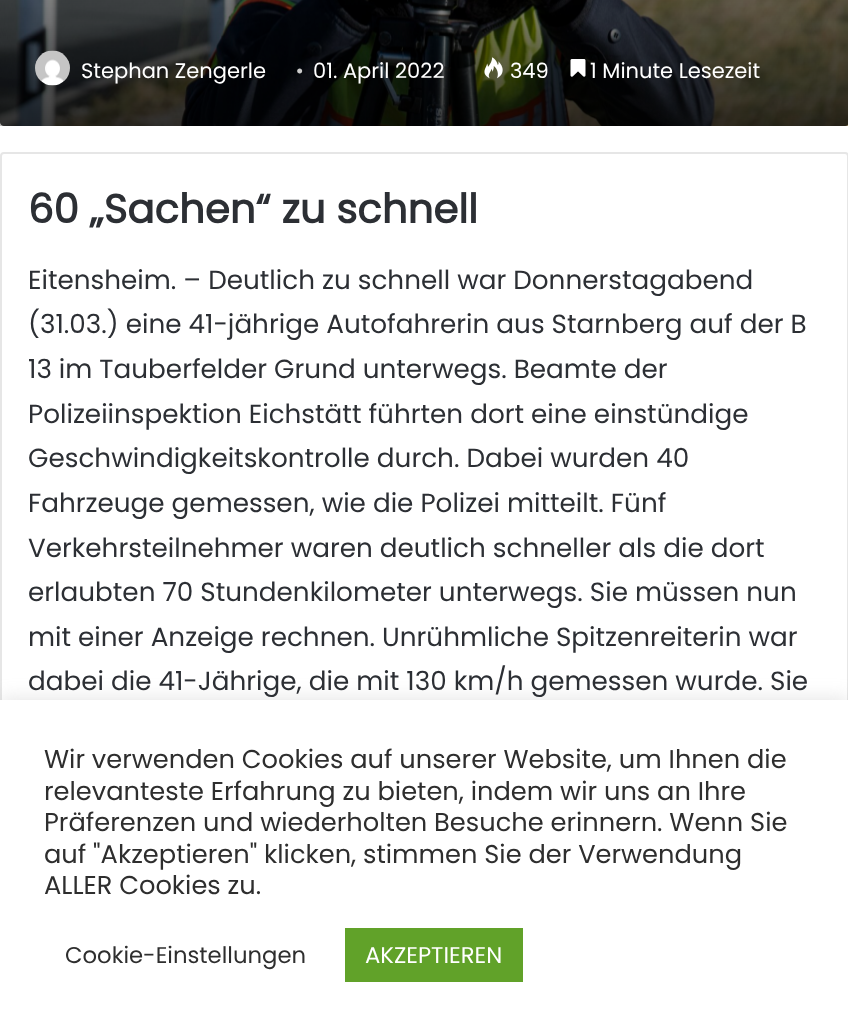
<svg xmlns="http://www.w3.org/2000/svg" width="848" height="1034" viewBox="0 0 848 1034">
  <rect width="100%" height="100%" fill="#fff"/>
  <image x="0" y="0" width="848" height="126" href="img/1.png"/>
  <image x="35" y="50" width="35" height="36" href="img/2.png"/>
  <image x="484" y="57" width="19" height="22" href="img/3.png"/>
  <image x="570" y="59" width="16" height="18" href="img/4.png"/>
  <rect x="1" y="153" width="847" height="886" rx="3" fill="none" stroke="#e6e6e6" stroke-width="2"/>
  <path d="M0 698h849v335H0z" fill="#acabab4d" filter="blur(9px)"/>
  <path d="M0 700h848v334H0z" fill="#fff"/>
  <path d="M345 928h178v54H345z" fill="#61a229"/>
  <text x="81" y="78" font-family="Poppins" font-size="21" fill="#fff">Stephan Zengerle</text>
  <text x="296" y="78" font-family="Liberation Serif" font-size="21" fill="#ccc">•</text>
  <g font-family="Poppins" font-size="21" fill="#fff">
    <text x="313" y="78">01. April 2022</text>
    <text x="510" y="78">349</text>
    <text x="590" y="78">1 Minute Lesezeit</text>
  </g>
  <text x="28" y="223" font-family="Poppins" font-size="40.25" font-weight="bold" fill="#2c2f34">60 „Sachen“ zu schnell</text>
  <g font-family="Poppins" font-size="26.25" fill="#2c2f34">
    <text x="28" y="289">Eitensheim. – Deutlich zu schnell war Donnerstagabend</text>
    <text x="28" y="333">(31.03.) eine 41-jährige Autofahrerin aus Starnberg auf der B</text>
    <text x="28" y="378">13 im Tauberfelder Grund unterwegs. Beamte der</text>
    <text x="28" y="423">Polizeiinspektion Eichstätt führten dort eine einstündige</text>
    <text x="28" y="467">Geschwindigkeitskontrolle durch. Dabei wurden 40</text>
    <text x="28" y="512">Fahrzeuge gemessen, wie die Polizei mitteilt. Fünf</text>
    <text x="28" y="557">Verkehrsteilnehmer waren deutlich schneller als die dort</text>
    <text x="28" y="601">erlaubten 70 Stundenkilometer unterwegs. Sie müssen nun</text>
    <text x="28" y="646">mit einer Anzeige rechnen. Unrühmliche Spitzenreiterin war</text>
    <text x="28" y="690">dabei die 41-Jährige, die mit 130 km/h gemessen wurde. Sie</text>
  </g>
  <g font-family="Poppins" font-size="25.7" fill="#2e2e2e">
    <text x="44" y="768">Wir verwenden Cookies auf unserer Website, um Ihnen die</text>
    <text x="44" y="800">relevanteste Erfahrung zu bieten, indem wir uns an Ihre</text>
    <text x="44" y="831">Präferenzen und wiederholten Besuche erinnern. Wenn Sie</text>
    <text x="44" y="863">auf "Akzeptieren" klicken, stimmen Sie der Verwendung</text>
    <text x="44" y="894">ALLER Cookies zu.</text>
  </g>
  <text x="65" y="963" font-family="Poppins" font-size="22.75" fill="#2e2e2e">Cookie-Einstellungen</text>
  <text x="365" y="963" font-family="Poppins" font-size="22.75" fill="#fff">AKZEPTIEREN</text>
</svg>
